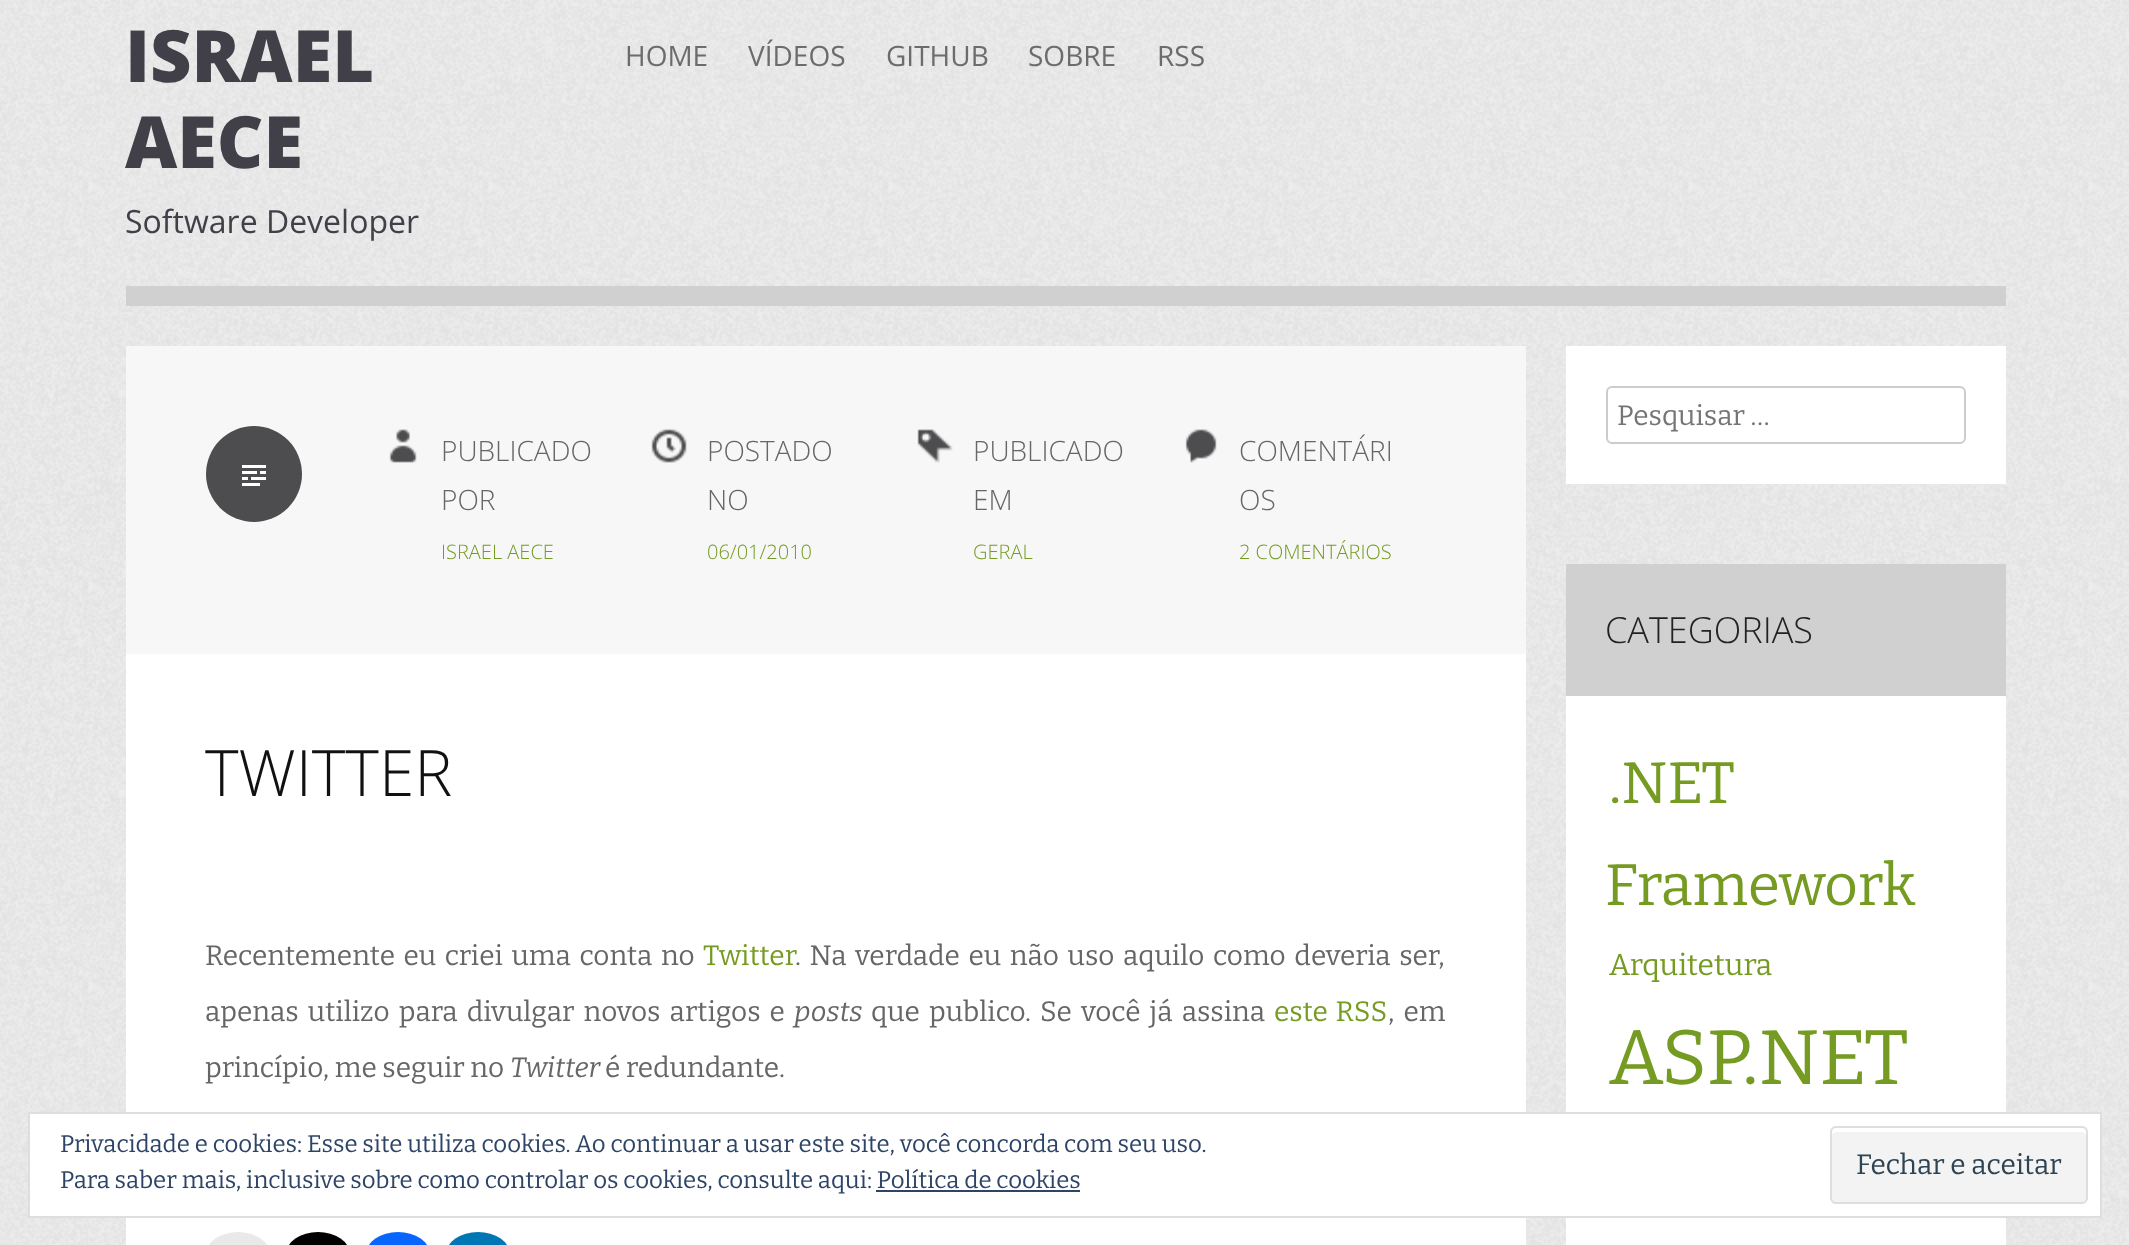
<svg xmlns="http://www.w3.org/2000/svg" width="2129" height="1245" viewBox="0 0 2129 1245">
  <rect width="100%" height="100%" fill="#eee"/>
  <image x="0" y="0" width="2129" height="1245" href="img/1.png"/>
  <path d="M126 286h1880v20H126z" fill="#d0d0d0"/>
  <path d="M126 654h1400v591H126z" fill="#fff"/>
  <path d="M126 346h1400v308H126z" fill="#f7f7f7"/>
  <circle cx="254" cy="474" r="48" fill="#4d4d4f"/>
  <image x="242" y="465" width="24" height="21" href="img/2.png"/>
  <image x="389" y="429" width="28" height="34" href="img/3.png"/>
  <image x="651" y="429" width="36" height="34" href="img/4.png"/>
  <image x="917" y="429" width="36" height="34" href="img/5.png"/>
  <image x="1185" y="429" width="32" height="34" href="img/6.png"/>
  <rect x="206" y="1232" width="64" height="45" rx="32" fill="#e9e9e9"/>
  <rect x="286" y="1232" width="64" height="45" rx="32" fill="#000"/>
  <rect x="366" y="1232" width="64" height="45" rx="32" fill="#0866ff"/>
  <rect x="446" y="1232" width="64" height="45" rx="32" fill="#0077b5"/>
  <path d="M1566 346h440v138H1566z" fill="#fff"/>
  <rect x="1607" y="387" width="358" height="56" rx="5" fill="none" stroke="#ccc" stroke-width="2"/>
  <path d="M1566 696h440v549H1566z" fill="#fff"/>
  <path d="M1566 564h440v132H1566z" fill="#d0d0d0"/>
  <path d="M29 1113h2072v104H29z" fill="#fff" stroke="#dedede" stroke-width="2"/>
  <rect x="1830" y="1126" width="258" height="78" rx="6" fill="#f3f3f3"/>
  <path d="M1836 1132H2082C2084 1132 2086 1134 2086 1136V1132C2086 1130 2084 1128 2082 1128H1836C1834 1128 1832 1130 1832 1132V1136C1832 1134 1834 1132 1836 1132Z" fill="#fff"/>
  <rect x="1831" y="1127" width="256" height="76" rx="5" fill="none" stroke="#dedede" stroke-width="2"/>
  <path d="M876 1190h204v2H876z" fill="#2e4467"/>
  <g font-family="Open Sans" font-size="72" font-weight="800" fill="#414048">
    <text x="125" y="82">ISRAEL</text>
    <text x="125" y="168">AECE</text>
  </g>
  <text x="125" y="233" font-family="Open Sans" font-size="32" fill="#414048">Software Developer</text>
  <g font-family="Open Sans" font-size="28" fill="#6c6c6c">
    <text x="625" y="66">HOME</text>
    <text x="748" y="66">VÍDEOS</text>
    <text x="886" y="66">GITHUB</text>
    <text x="1028" y="66">SOBRE</text>
    <text x="1157" y="66">RSS</text>
  </g>
  <g font-family="Open Sans" font-size="28" font-weight="300" fill="#666">
    <text x="441" y="461">PUBLICADO</text>
    <text x="441" y="510">POR</text>
  </g>
  <text x="441" y="559" font-family="Open Sans" font-size="20" font-weight="300" fill="#759b22">ISRAEL AECE</text>
  <g font-family="Open Sans" font-size="28" font-weight="300" fill="#666">
    <text x="707" y="461">POSTADO</text>
    <text x="707" y="510">NO</text>
  </g>
  <text x="707" y="559" font-family="Open Sans" font-size="20" font-weight="300" fill="#759b22">06/01/2010</text>
  <g font-family="Open Sans" font-size="28" font-weight="300" fill="#666">
    <text x="973" y="461">PUBLICADO</text>
    <text x="973" y="510">EM</text>
  </g>
  <text x="973" y="559" font-family="Open Sans" font-size="20" font-weight="300" fill="#759b22">GERAL</text>
  <g font-family="Open Sans" font-size="28" font-weight="300" fill="#666">
    <text x="1239" y="461">COMENTÁRI</text>
    <text x="1239" y="510">OS</text>
  </g>
  <text x="1239" y="559" font-family="Open Sans" font-size="20" font-weight="300" fill="#759b22">2 COMENTÁRIOS</text>
  <text x="205" y="796" font-family="Open Sans" font-size="64" font-weight="300" fill="#111">TWITTER</text>
  <text x="205" y="965" word-spacing="3" font-family="Bitter" font-size="28" fill="#666">Recentemente eu criei uma conta no</text>
  <text x="703" y="965" font-family="Bitter" font-size="28" fill="#759b22">Twitter</text>
  <g font-family="Bitter" font-size="28" fill="#666">
    <text x="795" y="965" word-spacing="3">. Na verdade eu não uso aquilo como deveria ser,</text>
    <text x="205" y="1021" word-spacing="3.5">apenas utilizo para divulgar novos artigos e</text>
  </g>
  <text x="794" y="1021" font-family="Bitter" font-size="28" font-weight="100" font-style="italic" fill="#666">posts</text>
  <text x="871" y="1021" word-spacing="3.5" font-family="Bitter" font-size="28" fill="#666">que publico. Se você já assina</text>
  <text x="1274" y="1021" word-spacing="2" font-family="Bitter" font-size="28" fill="#759b22">este RSS</text>
  <g font-family="Bitter" font-size="28" fill="#666">
    <text x="1388" y="1021" word-spacing="3.5">, em</text>
    <text x="205" y="1077">princípio, me seguir no</text>
  </g>
  <text x="510" y="1077" font-family="Bitter" font-size="28" font-weight="100" font-style="italic" fill="#666">Twitter</text>
  <text x="605" y="1077" font-family="Bitter" font-size="28" fill="#666">é redundante.</text>
  <text x="1617" y="425" font-family="Bitter" font-size="28" fill="#757575">Pesquisar …</text>
  <text x="1605" y="643" font-family="Open Sans" font-size="36" font-weight="300" fill="#222">CATEGORIAS</text>
  <g font-family="Bitter" font-size="58.25" fill="#759b22">
    <text x="1609" y="803">.NET</text>
    <text x="1605" y="905">Framework</text>
  </g>
  <text x="1609" y="975" font-family="Bitter" font-size="30" fill="#759b22">Arquitetura</text>
  <text x="1609" y="1084" font-family="Bitter" font-size="77" fill="#759b22">ASP.NET</text>
  <text x="60" y="1152" font-family="Bitter" font-size="24" fill="#2e4467">Privacidade e cookies: Esse site utiliza cookies. Ao continuar a usar este site, você concorda com seu uso.</text>
  <text x="1856" y="1174" font-family="Bitter" font-size="28" fill="#2e4453">Fechar e aceitar</text>
  <text x="60" y="1188" font-family="Bitter" font-size="24" fill="#2e4467">Para saber mais, inclusive sobre como controlar os cookies, consulte aqui: Política de cookies</text>
</svg>
